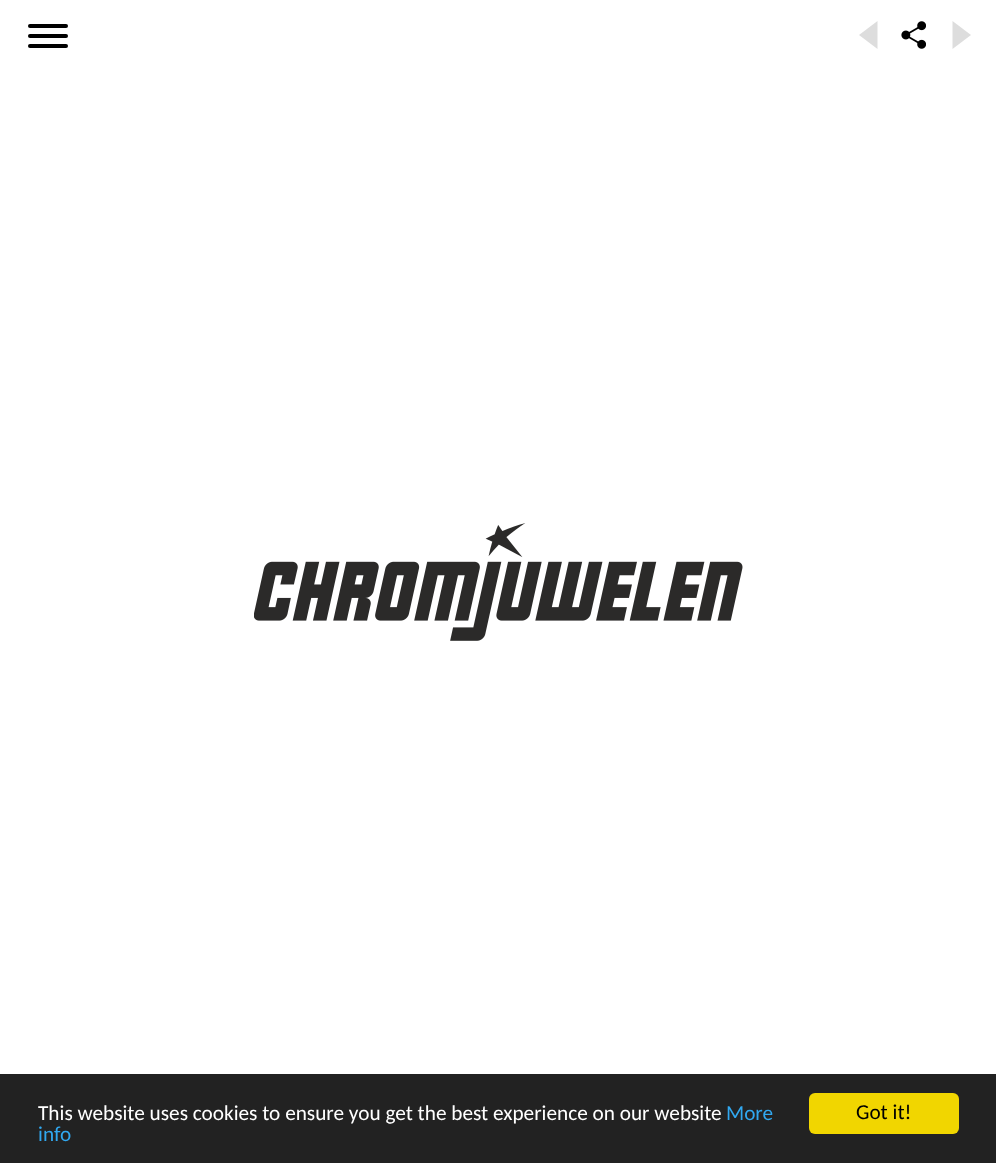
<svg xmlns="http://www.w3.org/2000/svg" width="996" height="1163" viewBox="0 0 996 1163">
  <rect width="100%" height="100%" fill="#fff"/>
  <path d="M877.5 21V49L859 35Z" fill="#ddd"/>
  <path d="M952.5 49V21L971 35Z" fill="#ddd"/>
  <rect x="28" y="24" width="40" height="4" rx="2" fill="#000"/>
  <rect x="28" y="34" width="40" height="4" rx="2" fill="#000"/>
  <rect x="28" y="44" width="40" height="4" rx="2" fill="#000"/>
  <image x="901" y="21" width="25" height="28" href="img/1.png"/>
  <image x="254" y="523" width="489" height="118" href="img/2.png"/>
  <path d="M0 1074h996v89H0z" fill="#222"/>
  <rect x="809" y="1093" width="150" height="41" rx="6" fill="#f1d600"/>
  <text x="38" y="1120" font-family="Carlito" font-size="21.25" fill="#fff">This website uses cookies to ensure you get the best experience on our website</text>
  <g font-family="Carlito" font-size="21.25" fill="#31a8f0">
    <text x="726" y="1120">More</text>
    <text x="38" y="1141">info</text>
  </g>
  <text x="856" y="1119" font-family="Carlito" font-size="21.25" fill="#000">Got it!</text>
</svg>
